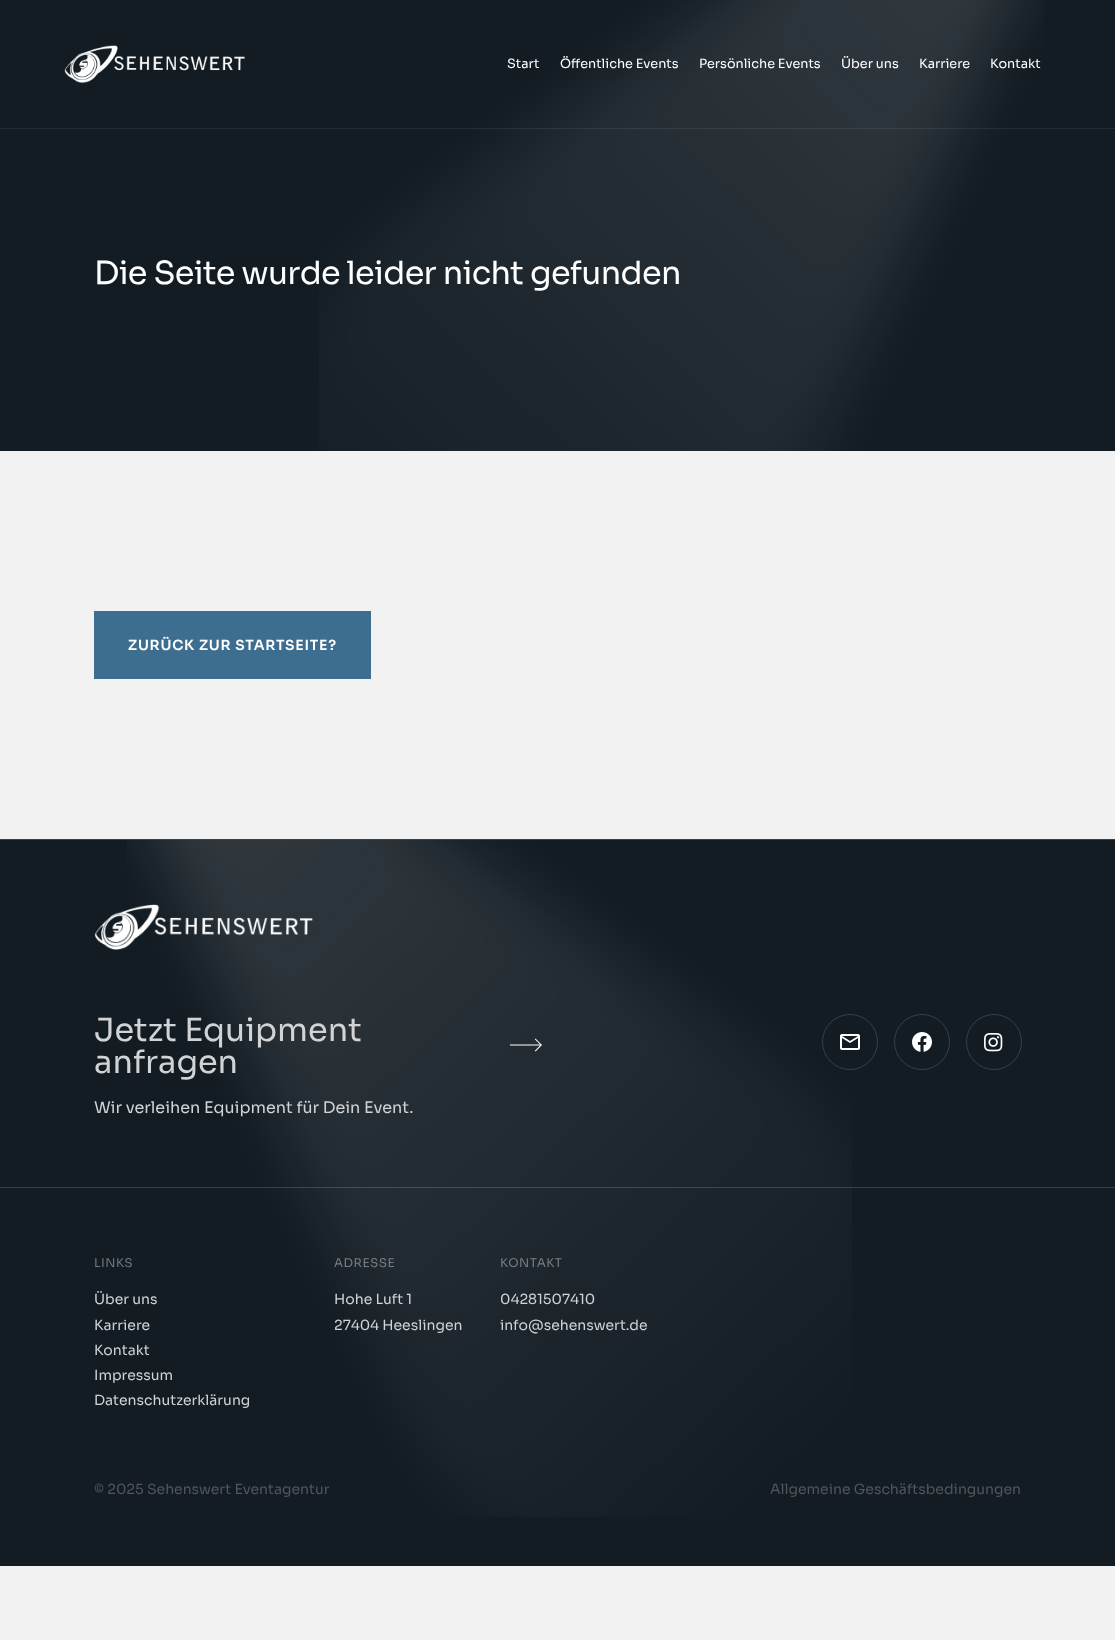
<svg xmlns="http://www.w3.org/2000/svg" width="1115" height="1640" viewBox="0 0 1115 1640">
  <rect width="100%" height="100%" fill="#f2f2f2"/>
  <path d="M0 0h1115v451H0z" fill="#131c23"/>
  <image x="319" y="0" width="725" height="451" href="img/2.png"/>
  <path d="M0 128h1115v1H0z" fill="#ffffff14"/>
  <image x="64" y="45" width="181" height="38" href="img/1.png"/>
  <path d="M94 611h277v68H94z" fill="#3d6d8f"/>
  <path d="M0 840h1115v726H0z" fill="#131c23"/>
  <path d="M0 839h1115v1H0z" fill="#394046"/>
  <path d="M0 1187h1115v1H0z" fill="#394046"/>
  <image x="127" y="840" width="725" height="677" href="img/3.png"/>
  <image x="94" y="904" width="219" height="46" href="img/4.png"/>
  <image x="510" y="1038" width="32" height="14" href="img/5.png"/>
  <circle cx="850" cy="1042" r="27.5" fill="none" stroke="#394046"/>
  <image x="840" y="1034" width="20" height="16" href="img/6.png"/>
  <circle cx="922" cy="1042" r="27.5" fill="none" stroke="#394046"/>
  <image x="912" y="1032" width="20" height="20" href="img/7.png"/>
  <circle cx="994" cy="1042" r="27.5" fill="none" stroke="#394046"/>
  <image x="984" y="1033" width="19" height="19" href="img/8.png"/>
  <g font-family="Sora" font-size="12.75" fill="#fff">
    <text x="507" y="68">Start</text>
    <text x="560" y="68">Öffentliche Events</text>
    <text x="699" y="68">Persönliche Events</text>
    <text x="841" y="68">Über uns</text>
    <text x="919" y="68">Karriere</text>
    <text x="990" y="68">Kontakt</text>
  </g>
  <text x="94" y="284" font-family="Sora" font-size="32" letter-spacing="-0.65" fill="#fff">Die Seite wurde leider nicht gefunden</text>
  <text x="128" y="650" font-family="Sora" font-size="14" font-weight="600" letter-spacing="0.8" fill="#fff">ZURÜCK ZUR STARTSEITE?</text>
  <g font-family="Sora" font-size="32" fill="#d1d3d5">
    <text x="94" y="1041">Jetzt Equipment</text>
    <text x="94" y="1073">anfragen</text>
  </g>
  <text x="94" y="1113" font-family="Sora" font-size="16" fill="#d1d3d5">Wir verleihen Equipment für Dein Event.</text>
  <text x="94" y="1267" font-family="Sora" font-size="12" letter-spacing="0.5" fill="#71777b">LINKS</text>
  <g font-family="Sora" font-size="14" fill="#d1d3d5">
    <text x="94" y="1304">Über uns</text>
    <text x="94" y="1330">Karriere</text>
    <text x="94" y="1355">Kontakt</text>
    <text x="94" y="1380">Impressum</text>
    <text x="94" y="1405">Datenschutzerklärung</text>
  </g>
  <text x="334" y="1267" font-family="Sora" font-size="12" letter-spacing="0.5" fill="#787d81">ADRESSE</text>
  <g font-family="Sora" font-size="14" fill="#d1d3d5">
    <text x="334" y="1304">Hohe Luft 1</text>
    <text x="334" y="1330">27404 Heeslingen</text>
  </g>
  <text x="500" y="1267" font-family="Sora" font-size="12" letter-spacing="0.5" fill="#787d81">KONTAKT</text>
  <g font-family="Sora" font-size="14" fill="#d1d3d5">
    <text x="500" y="1304">04281507410</text>
    <text x="500" y="1330">info@sehenswert.de</text>
  </g>
  <g font-family="Sora" font-size="14" fill="#50565b">
    <text x="94" y="1494">© 2025 Sehenswert Eventagentur</text>
    <text x="770" y="1494">Allgemeine Geschäftsbedingungen</text>
  </g>
</svg>
